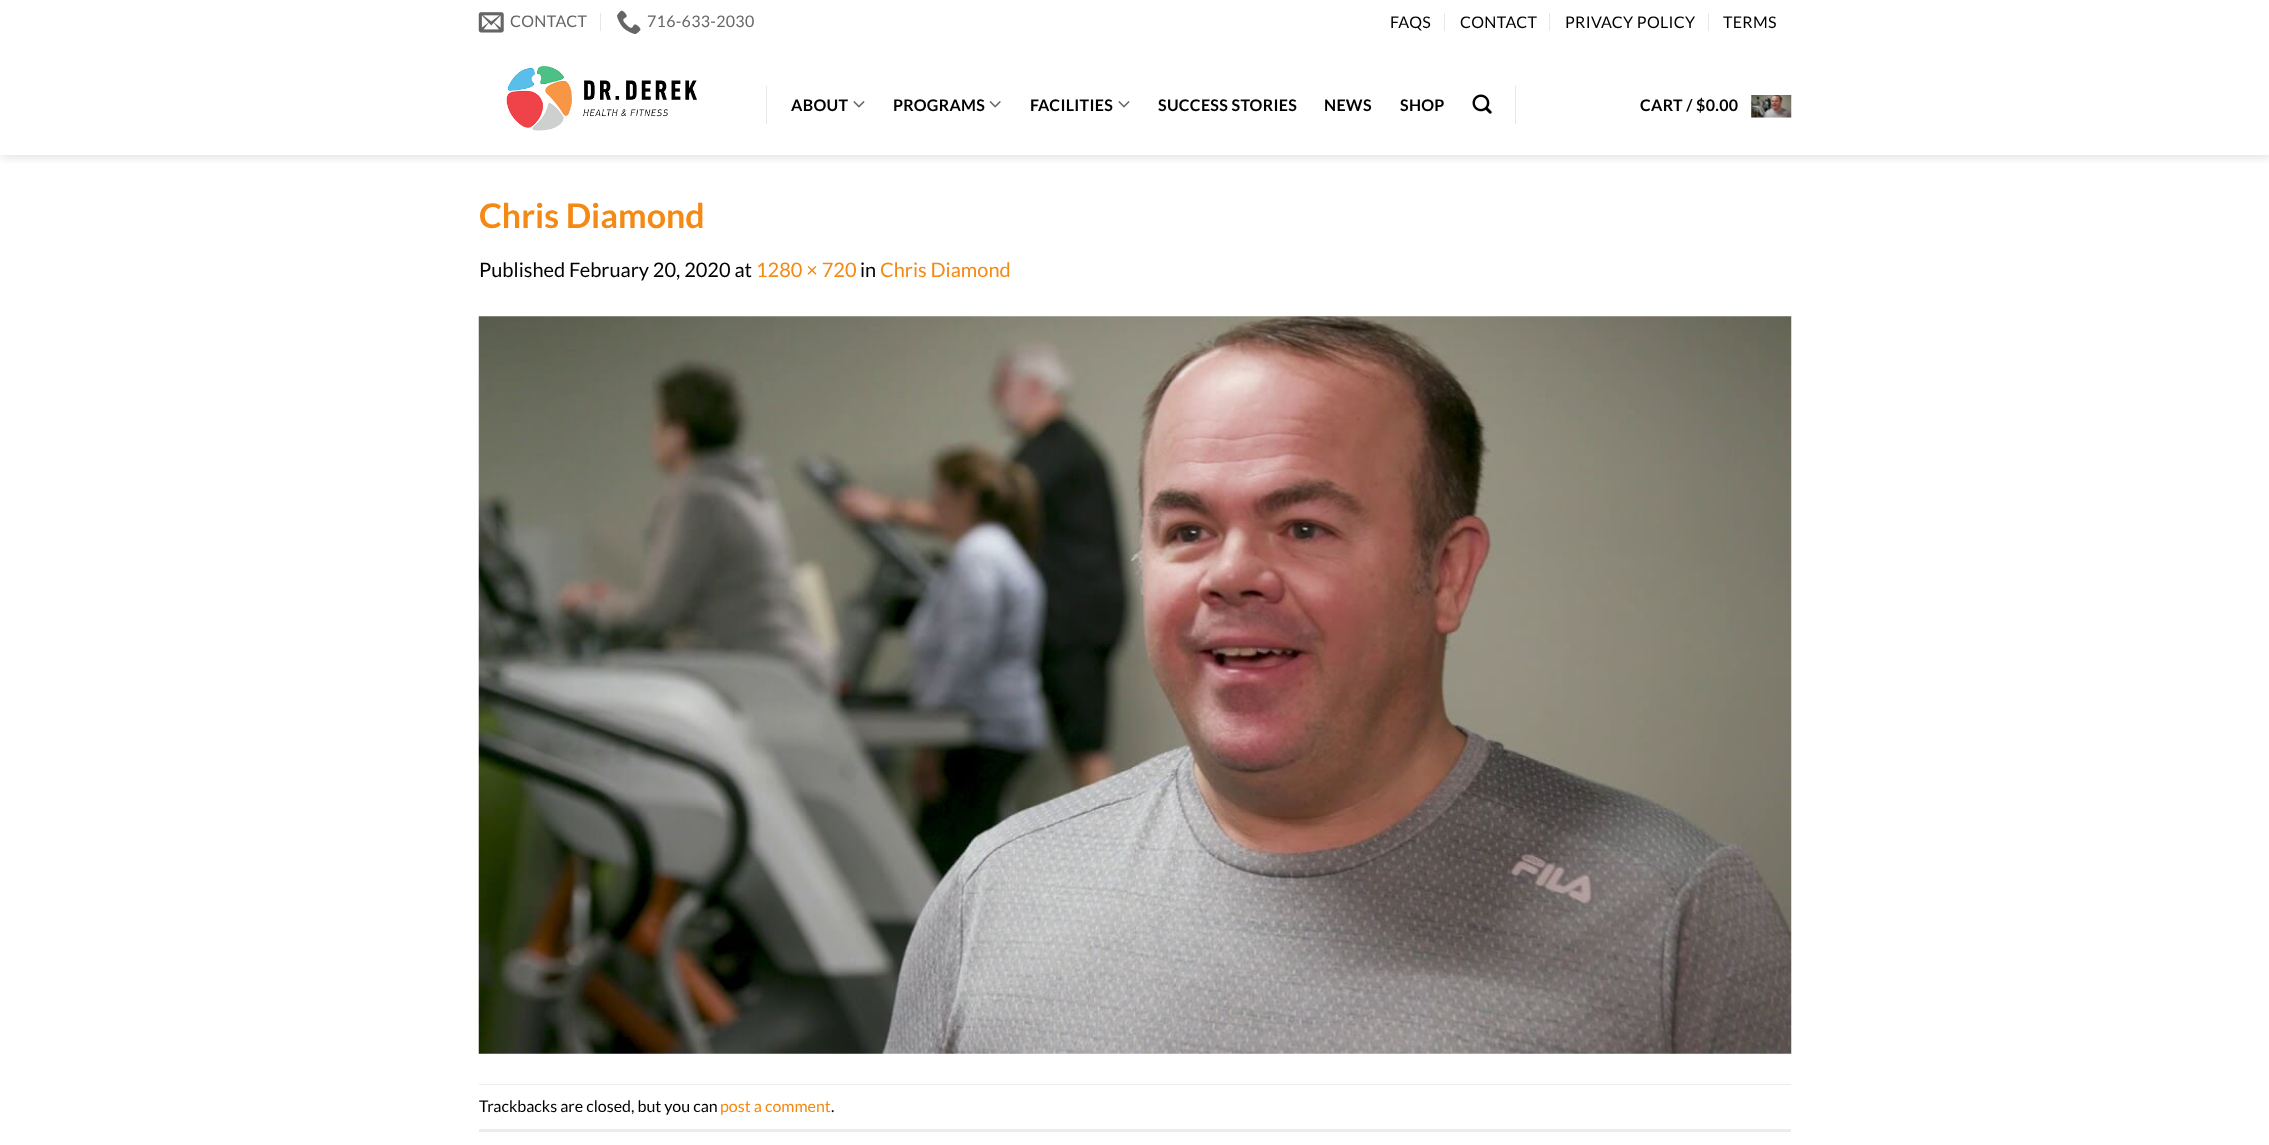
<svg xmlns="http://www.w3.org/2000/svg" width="2269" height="1145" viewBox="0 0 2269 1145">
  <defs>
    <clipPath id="clip1"><path d="M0 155h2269v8H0z"/></clipPath>
  </defs>
  <rect width="100%" height="100%" fill="#fff"/>
  <g clip-path="url(#clip1)">
    <path d="M1 1h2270v155H1z" fill="#00000026" filter="blur(6px)"/>
  </g>
  <image x="478" y="12" width="26" height="21" href="img/1.png"/>
  <path d="M600 13h1v18H600z" fill="#e6e6e6"/>
  <image x="617" y="10" width="24" height="24" href="img/2.png"/>
  <path d="M1444 13h1v18H1444z" fill="#e6e6e6"/>
  <path d="M1549 13h1v18H1549z" fill="#e6e6e6"/>
  <path d="M1708 13h1v18H1708z" fill="#e6e6e6"/>
  <image x="506" y="66" width="191" height="65" href="img/3.png"/>
  <path d="M766 86h1v38H766z" fill="#e6e6e6"/>
  <image x="853" y="101" width="12" height="7" href="img/4.png"/>
  <image x="989" y="101" width="12" height="7" href="img/5.png"/>
  <image x="1118" y="101" width="12" height="7" href="img/4.png"/>
  <image x="1472" y="94" width="20" height="20" href="img/6.png"/>
  <path d="M1515 86h1v38H1515z" fill="#e6e6e6"/>
  <image x="1751" y="95" width="41" height="23" href="img/7.png"/>
  <image x="478" y="316" width="1314" height="738" href="img/8.png"/>
  <path d="M479 1084h1312v1H479z" fill="#ececec"/>
  <path d="M479 1129h1312v3H479z" fill="#ececec"/>
  <g font-family="Lato" font-size="16" letter-spacing="0.3" fill="#656565">
    <text x="510" y="27">CONTACT</text>
    <text x="647" y="27">716-633-2030</text>
  </g>
  <g font-family="Lato" font-size="16" letter-spacing="0.3" fill="#000">
    <text x="1390" y="28">FAQS</text>
    <text x="1460" y="28">CONTACT</text>
    <text x="1565" y="28">PRIVACY POLICY</text>
    <text x="1723" y="28">TERMS</text>
  </g>
  <g font-family="Lato" font-size="16" font-weight="bold" letter-spacing="0.3" fill="#000">
    <text x="791" y="111">ABOUT</text>
    <text x="893" y="111">PROGRAMS</text>
    <text x="1030" y="111">FACILITIES</text>
    <text x="1158" y="111">SUCCESS STORIES</text>
    <text x="1324" y="111">NEWS</text>
    <text x="1400" y="111">SHOP</text>
    <text x="1640" y="111">CART / $0.00</text>
  </g>
  <text x="479" y="228" font-family="Lato" font-size="34" font-weight="bold" fill="#f48913">Chris Diamond</text>
  <text x="479" y="277" font-family="Lato" font-size="20" fill="#000">Published February 20, 2020 at</text>
  <text x="756" y="277" font-family="Lato" font-size="20" fill="#f48913">1280 × 720</text>
  <text x="860" y="277" font-family="Lato" font-size="20" fill="#000">in</text>
  <text x="880" y="277" font-family="Lato" font-size="20" fill="#f48913">Chris Diamond</text>
  <text x="479" y="1112" font-family="Lato" font-size="16" fill="#000">Trackbacks are closed, but you can</text>
  <text x="720" y="1112" font-family="Lato" font-size="16" fill="#f48913">post a comment</text>
  <text x="831" y="1112" font-family="Lato" font-size="16" fill="#000">.</text>
</svg>
